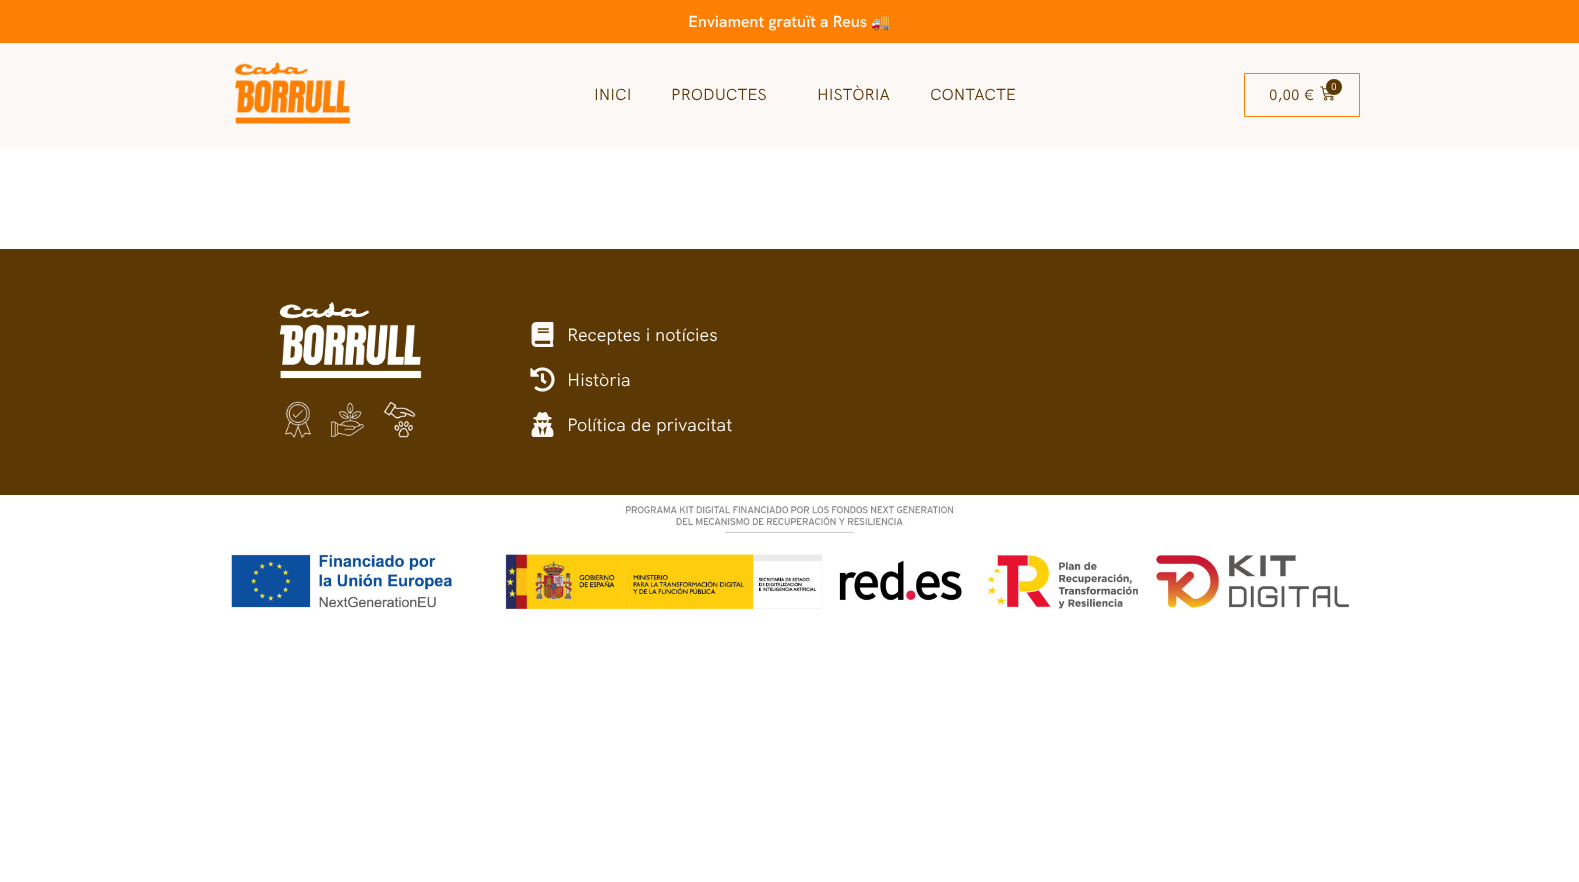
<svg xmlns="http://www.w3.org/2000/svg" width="1579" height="882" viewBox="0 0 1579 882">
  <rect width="100%" height="100%" fill="#fff"/>
  <path d="M0 0h1579v43H0z" fill="#fd7f04"/>
  <path d="M0 43h1579v104H0z" fill="#fcf8f5"/>
  <image x="235" y="62" width="116" height="62" href="img/1.png"/>
  <path d="M1244.5 73.5h115v43H1244.5z" fill="none" stroke="#fd7f04"/>
  <image x="1320" y="86" width="14" height="15" href="img/2.png"/>
  <circle cx="1334" cy="87" r="8" fill="#5c3804"/>
  <path d="M0 249h1579v246H0z" fill="#5c3804"/>
  <image x="279" y="302" width="143" height="77" href="img/3.png"/>
  <image x="285" y="401" width="131" height="37" href="img/4.png"/>
  <image x="531" y="322" width="23" height="25" href="img/5.png"/>
  <image x="530" y="367" width="25" height="25" href="img/6.png"/>
  <image x="531" y="412" width="23" height="25" href="img/7.png"/>
  <image x="230" y="505" width="1119" height="104" href="img/8.png"/>
  <text x="688" y="27" font-family="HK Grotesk" font-size="16" font-weight="600" fill="#fcf8f5">Enviament gratuït a Reus</text>
  <text x="871" y="27" font-family="Noto Color Emoji" font-size="16" font-weight="bold" fill="#fcf8f5">🚚</text>
  <g font-family="HK Grotesk" font-size="16" fill="#5c3804">
    <text x="594" y="100">INICI</text>
    <text x="671" y="100">PRODUCTES</text>
    <text x="817" y="100">HISTÒRIA</text>
    <text x="930" y="100">CONTACTE</text>
  </g>
  <text x="1331" y="90" font-family="HK Grotesk" font-size="10" fill="#fff">0</text>
  <text x="1269" y="100" font-family="HK Grotesk" font-size="15" fill="#5c3804">0,00 €</text>
  <g font-family="HK Grotesk" font-size="18" fill="#fcf8f5">
    <text x="567" y="341">Receptes i notícies</text>
    <text x="567" y="386">Història</text>
    <text x="567" y="431">Política de privacitat</text>
  </g>
</svg>
